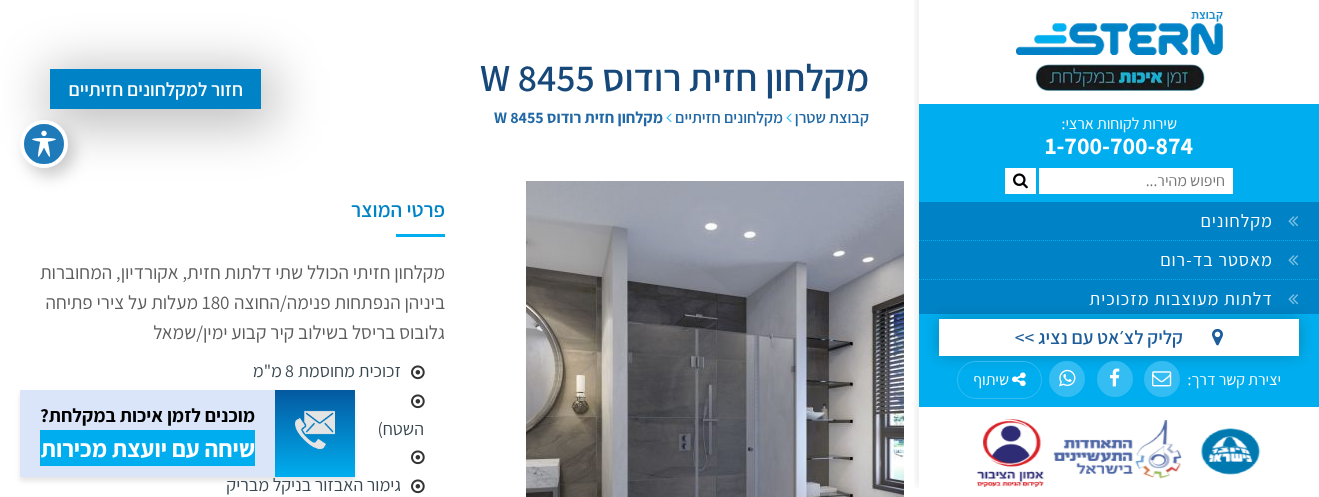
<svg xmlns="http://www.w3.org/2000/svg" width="1319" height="497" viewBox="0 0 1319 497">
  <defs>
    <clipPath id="clip1"><path d="M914 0h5v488H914z"/></clipPath>
    <linearGradient id="g1" gradientUnits="userSpaceOnUse" x1="315" y1="390" x2="315" y2="477"><stop offset="0" stop-color="#0459a0"/><stop offset="1" stop-color="#00aeef"/></linearGradient>
  </defs>
  <rect width="100%" height="100%" fill="#fff"/>
  <path d="M919 104h400v98H919z" fill="#00adef"/>
  <image x="526" y="181" width="378" height="316" href="img/12.png"/>
  <g clip-path="url(#clip1)">
    <path d="M918 -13h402v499H918z" fill="#0000001a" filter="blur(5px)"/>
  </g>
  <image x="1016" y="12" width="207" height="79" href="img/1.png"/>
  <path d="M1039 168h194v26H1039z" fill="#fff"/>
  <path d="M1005 168h31v26H1005z" fill="#fff"/>
  <image x="1013" y="173" width="15" height="16" href="img/2.png"/>
  <path d="M919 202h400v112H919z" fill="#0083c6"/>
  <path d="M919 240.5H1319" fill="none" stroke="#00adef" stroke-dasharray="1 1"/>
  <image x="1288" y="216" width="11" height="11" href="img/3.png"/>
  <path d="M919 279.5H1319" fill="none" stroke="#00adef" stroke-dasharray="1 1"/>
  <image x="1288" y="255" width="11" height="11" href="img/3.png"/>
  <image x="1288" y="294" width="11" height="11" href="img/3.png"/>
  <path d="M919 314h400v93H919z" fill="#00aeef"/>
  <path d="M939 319h360v37H939z" fill="#10101040" filter="blur(7.5px)"/>
  <path d="M939 319h360v37H939z" fill="#fff"/>
  <image x="1212" y="328" width="11" height="18" href="img/4.png"/>
  <circle cx="1162" cy="379" r="18" fill="#33bdf2"/>
  <image x="1152" y="371" width="20" height="16" href="img/5.png"/>
  <circle cx="1115" cy="379" r="18" fill="#33bdf2"/>
  <image x="1110" y="368" width="10" height="19" href="img/6.png"/>
  <circle cx="1067" cy="379" r="18" fill="#33bdf2"/>
  <image x="1059" y="369" width="17" height="18" href="img/7.png"/>
  <rect x="957.5" y="361.5" width="84" height="37" rx="18.5" fill="none" stroke="#33bdf2"/>
  <image x="1012" y="372" width="14" height="15" href="img/8.png"/>
  <image x="976" y="419" width="285" height="68" href="img/9.png"/>
  <path d="M47 69h227v56H47z" fill="#00000045" filter="blur(25.5px)"/>
  <path d="M50 69h211v40H50z" fill="#0083c6"/>
  <image x="786" y="113" width="6" height="10" href="img/10.png"/>
  <image x="666" y="113" width="6" height="10" href="img/10.png"/>
  <rect x="26" y="128" width="48" height="48" rx="24" fill="#00000033" filter="blur(8px)"/>
  <circle cx="44" cy="144" r="22" fill="#1e7ab9" stroke="#fff" stroke-width="4"/>
  <image x="32" y="130" width="24" height="27" href="img/11.png"/>
  <path d="M396 234h49v3H396z" fill="#00aeef"/>
  <image x="411" y="365" width="14" height="15" href="img/13.png"/>
  <image x="411" y="394" width="14" height="15" href="img/13.png"/>
  <image x="411" y="450" width="14" height="15" href="img/13.png"/>
  <image x="411" y="479" width="14" height="15" href="img/13.png"/>
  <path d="M20 394h335v87H20z" fill="#0000001a" filter="blur(2.5px)"/>
  <path d="M20 390h255v87H20z" fill="#dbe5f9"/>
  <path d="M275 390h80v87H275z" fill="url(#g1)"/>
  <image x="295" y="410" width="40" height="40" href="img/14.png"/>
  <path d="M40 430h215v36H40z" fill="#00aeef"/>
  <text x="1177" y="129" font-family="Assistant" font-size="16" direction="rtl" fill="#fff">שירות לקוחות ארצי:</text>
  <text x="1045" y="154" font-family="Assistant" font-size="24" font-weight="bold" fill="#fff">1-700-700-874</text>
  <text x="1225" y="186" font-family="Assistant" font-size="16" direction="rtl" fill="#757575">חיפוש מהיר...</text>
  <g font-family="Assistant" font-size="18" letter-spacing="1" direction="rtl" fill="#fff">
    <text x="1273" y="227">מקלחונים</text>
    <text x="1273" y="266">מאסטר בד-רום</text>
    <text x="1273" y="305">דלתות מעוצבות מזכוכית</text>
  </g>
  <text x="1183" y="344" font-family="Assistant" font-size="19.2" font-weight="600" direction="rtl" fill="#1d5d9c">קליק לצ׳אט עם נציג &gt;&gt;</text>
  <g font-family="Assistant" font-size="16" direction="rtl" fill="#fff">
    <text x="1281" y="385">יצירת קשר דרך:</text>
    <text x="1009" y="385">שיתוף</text>
  </g>
  <text x="869" y="91" font-family="Assistant" font-size="38" font-weight="600" direction="rtl" fill="#164879">מקלחון חזית רודוס</text>
  <text x="480" y="91" font-family="Assistant" font-size="38" font-weight="600" fill="#164879">W 8455</text>
  <text x="243" y="96" font-family="Assistant" font-size="19.2" font-weight="600" direction="rtl" fill="#fff">חזור למקלחונים חזיתיים</text>
  <g font-family="Assistant" font-size="16" font-weight="600" direction="rtl" fill="#2268a5">
    <text x="869" y="123">קבוצת שטרן</text>
    <text x="783" y="123">מקלחונים חזיתיים</text>
  </g>
  <text x="663" y="123" font-family="Assistant" font-size="16" font-weight="bold" direction="rtl" fill="#2268a5">מקלחון חזית רודוס</text>
  <text x="494" y="123" font-family="Assistant" font-size="16" font-weight="bold" fill="#2268a5">W 8455</text>
  <text x="445" y="217" font-family="Assistant" font-size="21" font-weight="600" direction="rtl" fill="#0083c6">פרטי המוצר</text>
  <g font-family="Assistant" font-size="19.2" direction="rtl" fill="#5c5c5c">
    <text x="445" y="279">מקלחון חזיתי הכולל שתי דלתות חזית, אקורדיון, המחוברות</text>
    <text x="445" y="309">ביניהן הנפתחות פנימה/החוצה</text>
  </g>
  <text x="202" y="309" font-family="Assistant" font-size="19.2" fill="#5c5c5c">180</text>
  <g font-family="Assistant" font-size="19.2" direction="rtl" fill="#5c5c5c">
    <text x="198" y="309">מעלות על צירי פתיחה</text>
    <text x="445" y="339">גלובוס בריסל בשילוב קיר קבוע ימין/שמאל</text>
  </g>
  <text x="401" y="377" font-family="Assistant" font-size="18" direction="rtl" fill="#384750">זכוכית מחוסמת</text>
  <text x="285" y="377" font-family="Assistant" font-size="18" fill="#384750">8</text>
  <g font-family="Assistant" font-size="18" direction="rtl" fill="#384750">
    <text x="282" y="377">מ"מ</text>
    <text x="424" y="435">השטח)</text>
    <text x="401" y="491">גימור האבזור בניקל מבריק</text>
  </g>
  <text x="255" y="422" font-family="Assistant" font-size="19.2" font-weight="bold" direction="rtl" fill="#000">מוכנים לזמן איכות במקלחת?</text>
  <text x="255" y="457" font-family="Assistant" font-size="24" font-weight="bold" direction="rtl" fill="#fff">שיחה עם יועצת מכירות</text>
</svg>
